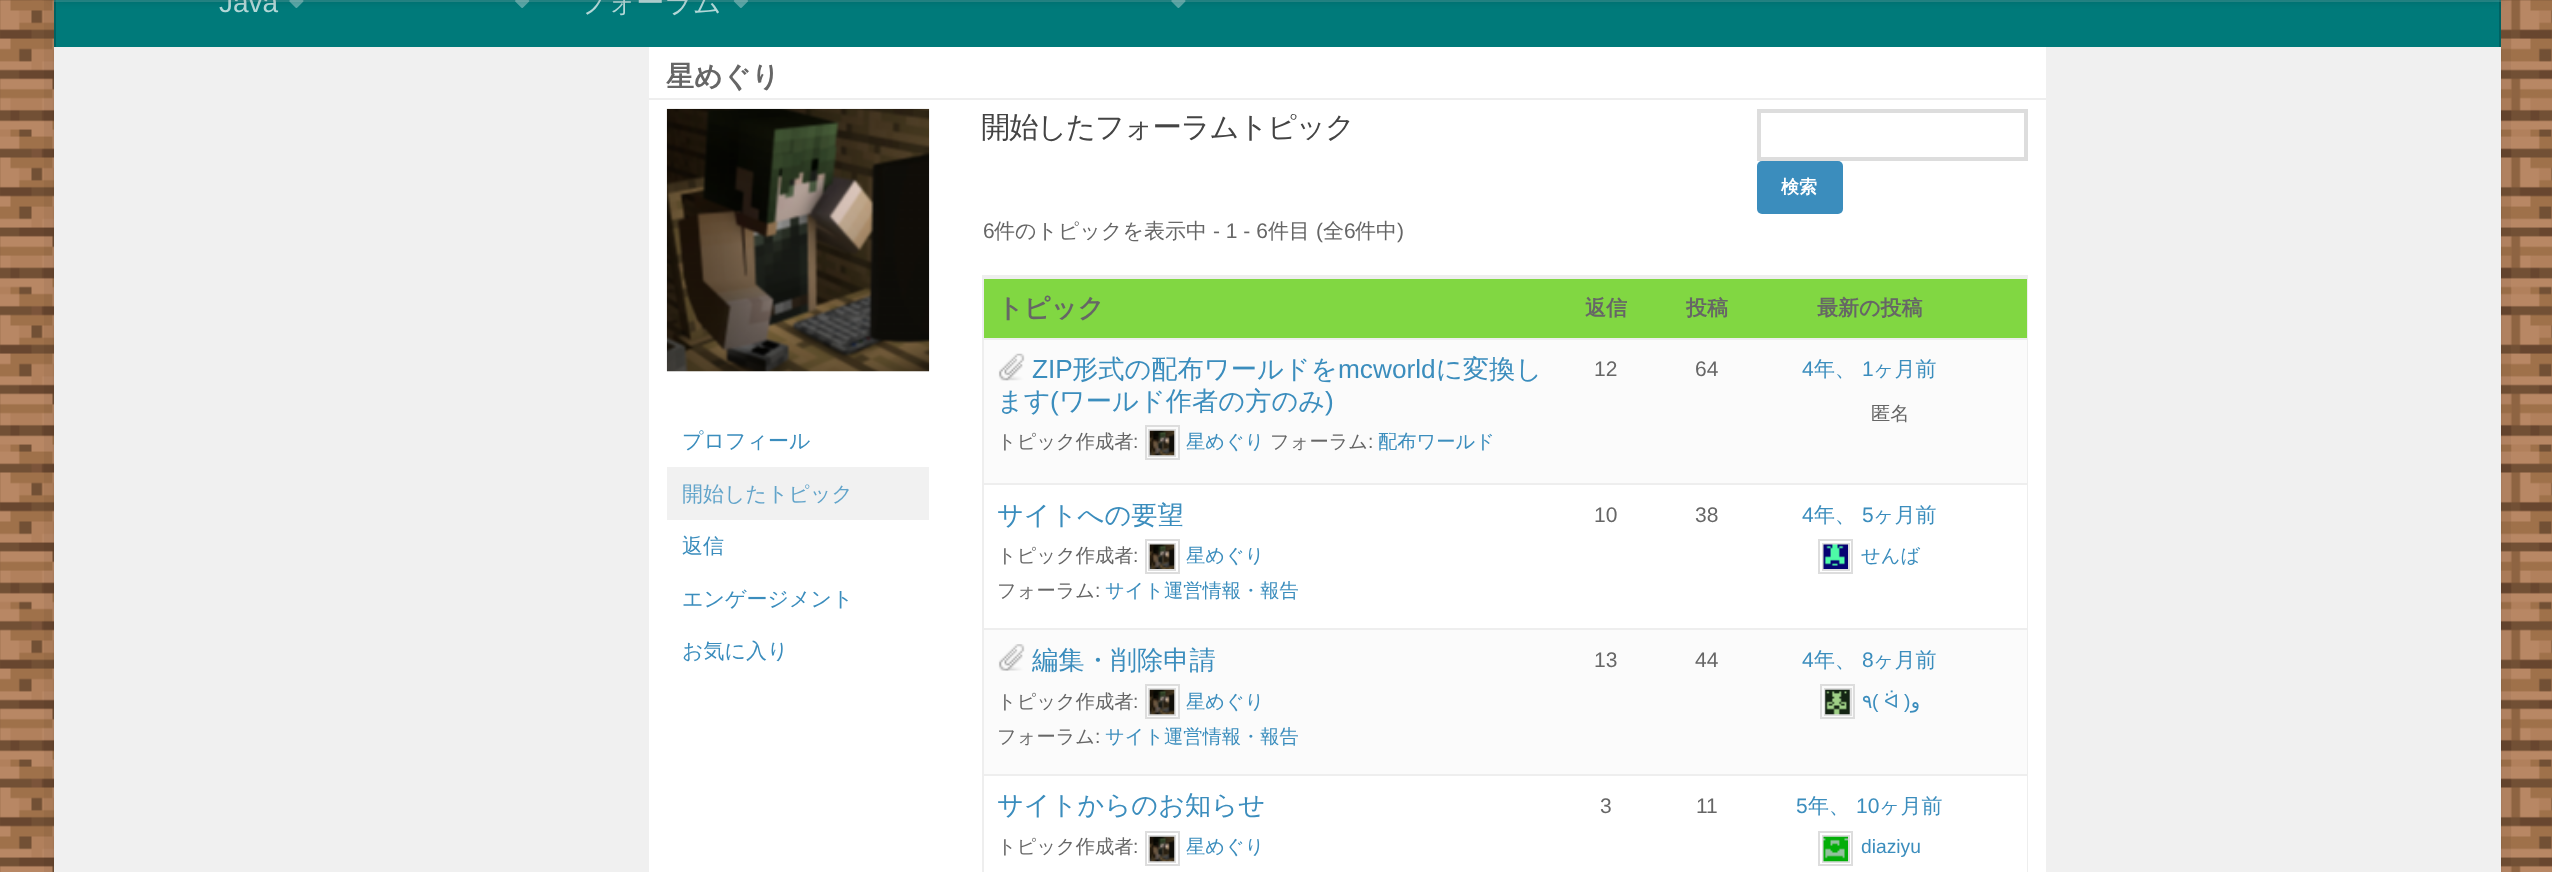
<svg xmlns="http://www.w3.org/2000/svg" width="2552" height="872" viewBox="0 0 2552 872">
  <rect width="100%" height="100%" fill="#fff"/>
  <image x="0" y="0" width="2552" height="872" href="img/1.png"/>
  <path d="M44-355V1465H2490H54V-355Z" fill="#0000000a"/>
  <path d="M65 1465H2511V-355H2501V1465Z" fill="#0000000a"/>
  <path d="M54 49h2447v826H54z" fill="#0000001a" filter="blur(1px)"/>
  <path d="M56 0h2443v47H56z" fill="#007a7a"/>
  <path d="M2499 0h2v47H2499z" fill="#006262"/>
  <path d="M54 0h2v47H54z" fill="#006262"/>
  <image x="289" y="0" width="15" height="8" href="img/2.png"/>
  <image x="515" y="0" width="15" height="8" href="img/3.png"/>
  <image x="733" y="0" width="15" height="8" href="img/4.png"/>
  <image x="1171" y="0" width="15" height="8" href="img/2.png"/>
  <path d="M649 47h1397v825H649z" fill="#fff"/>
  <path d="M54 47h595v825H54z" fill="#f0f0f0"/>
  <path d="M649 98h1397v2H649z" fill="#eee"/>
  <image x="666" y="108" width="264" height="264" href="img/5.png"/>
  <path d="M667 467h262v53H667z" fill="#f1f1f1"/>
  <path d="M1759 111h267v48H1759z" fill="none" stroke="#ddd" stroke-width="4"/>
  <rect x="1757" y="161" width="86" height="53" rx="5" fill="#3b8dbd"/>
  <path d="M983 276h1044v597H983z" fill="none" stroke="#eee" stroke-width="2"/>
  <path d="M984 279h1043v59H984z" fill="#81d742"/>
  <path d="M984 277h1043v2H984z" fill="#eee"/>
  <path d="M984 340h1043v143H984z" fill="#fbfbfb"/>
  <path d="M984 338h1043v2H984z" fill="#eee"/>
  <image x="998" y="353" width="27" height="28" href="img/6.png"/>
  <path d="M1146 426h33v33H1146z" fill="none" stroke="#ddd" stroke-width="2"/>
  <path d="M1149 430h26v26H1149z" fill="none" stroke="#ddd" stroke-width="2"/>
  <image x="1149" y="430" width="26" height="26" href="img/7.png"/>
  <path d="M2026 485h1v143H2026z" fill="#fff"/>
  <path d="M984 483h1043v2H984z" fill="#eee"/>
  <path d="M1146 540h33v33H1146z" fill="none" stroke="#ddd" stroke-width="2"/>
  <path d="M1149 544h26v26H1149z" fill="none" stroke="#ddd" stroke-width="2"/>
  <image x="1149" y="544" width="26" height="25" href="img/8.png"/>
  <path d="M1819 540h33v33H1819z" fill="none" stroke="#ddd" stroke-width="2"/>
  <path d="M1823 544h26v26H1823z" fill="none" stroke="#ddd" stroke-width="2"/>
  <image x="1823" y="544" width="25" height="25" href="img/9.png"/>
  <path d="M984 630h1043v144H984z" fill="#fbfbfb"/>
  <path d="M984 628h1043v2H984z" fill="#eee"/>
  <image x="998" y="644" width="27" height="27" href="img/10.png"/>
  <path d="M1146 685h33v33H1146z" fill="none" stroke="#ddd" stroke-width="2"/>
  <path d="M1149 689h26v26H1149z" fill="none" stroke="#ddd" stroke-width="2"/>
  <image x="1149" y="689" width="26" height="26" href="img/7.png"/>
  <path d="M1821 685h33v33H1821z" fill="none" stroke="#ddd" stroke-width="2"/>
  <path d="M1825 689h26v26H1825z" fill="none" stroke="#ddd" stroke-width="2"/>
  <image x="1825" y="689" width="25" height="26" href="img/11.png"/>
  <path d="M2026 776h1v96H2026z" fill="#fff"/>
  <path d="M984 774h1043v2H984z" fill="#eee"/>
  <path d="M1146 832h33v33H1146z" fill="none" stroke="#ddd" stroke-width="2"/>
  <path d="M1149 836h26v26H1149z" fill="none" stroke="#ddd" stroke-width="2"/>
  <image x="1149" y="836" width="26" height="26" href="img/7.png"/>
  <path d="M1819 832h33v33H1819z" fill="none" stroke="#ddd" stroke-width="2"/>
  <path d="M1823 836h26v26H1823z" fill="none" stroke="#ddd" stroke-width="2"/>
  <image x="1823" y="836" width="25" height="26" href="img/12.png"/>
  <path d="M2046 47h455v825H2046z" fill="#f0f0f0"/>
  <text x="219" y="12" font-family="Liberation Sans" font-size="28" fill="#b3d7d7">Java</text>
  <text x="579" y="12" font-family="WenQuanYi Zen Hei" font-size="28" font-weight="500" fill="#b3d7d7">フォーラム</text>
  <path d="M54-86V2H2501V-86V0H54Z" fill="#ffffff26"/>
  <path d="M54 -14h2447v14H54z" fill="#00000033" filter="blur(4.5px)"/>
  <text x="666" y="86" font-family="WenQuanYi Zen Hei" font-size="28" font-weight="bold" fill="#666">星めぐり</text>
  <text x="682" y="448" font-family="WenQuanYi Zen Hei" font-size="21" font-weight="500" fill="#3b8dbd">プロフィール</text>
  <text x="682" y="501" font-family="WenQuanYi Zen Hei" font-size="21" font-weight="500" fill="#62a4ca">開始したトピック</text>
  <g font-family="WenQuanYi Zen Hei" font-size="21" font-weight="500" fill="#3b8dbd">
    <text x="682" y="553">返信</text>
    <text x="682" y="606">エンゲージメント</text>
    <text x="682" y="658">お気に入り</text>
  </g>
  <text x="981" y="137" font-family="WenQuanYi Zen Hei" font-size="29.4" font-weight="500" letter-spacing="-1.25" fill="#444">開始したフォーラムトピック</text>
  <text x="1781" y="193" font-family="WenQuanYi Zen Hei" font-size="18" font-weight="bold" fill="#fff">検索</text>
  <text x="983" y="238" font-family="Liberation Sans" font-size="21" fill="#666">6</text>
  <text x="994" y="238" font-family="WenQuanYi Zen Hei" font-size="21" font-weight="500" fill="#666">件のトピックを表示中</text>
  <text x="1213" y="238" font-family="Liberation Sans" font-size="21" fill="#666">- 1 - 6</text>
  <text x="1268" y="238" font-family="WenQuanYi Zen Hei" font-size="21" font-weight="500" fill="#666">件目</text>
  <text x="1316" y="238" font-family="Liberation Sans" font-size="21" fill="#666">(</text>
  <text x="1323" y="238" font-family="WenQuanYi Zen Hei" font-size="21" font-weight="500" fill="#666">全</text>
  <text x="1344" y="238" font-family="Liberation Sans" font-size="21" fill="#666">6</text>
  <text x="1355" y="238" font-family="WenQuanYi Zen Hei" font-size="21" font-weight="500" fill="#666">件中</text>
  <text x="1397" y="238" font-family="Liberation Sans" font-size="21" fill="#666">)</text>
  <text x="997" y="317" font-family="WenQuanYi Zen Hei" font-size="26.25" font-weight="bold" fill="#666">トピック</text>
  <g font-family="WenQuanYi Zen Hei" font-size="21" font-weight="bold" fill="#666">
    <text x="1585" y="315">返信</text>
    <text x="1686" y="315">投稿</text>
    <text x="1817" y="315">最新の投稿</text>
  </g>
  <text x="1032" y="378" font-family="Liberation Sans" font-size="26.25" fill="#3b8dbd">ZIP</text>
  <text x="1072" y="378" font-family="WenQuanYi Zen Hei" font-size="26.25" font-weight="500" fill="#3b8dbd">形式の配布ワールドを</text>
  <text x="1338" y="378" font-family="Liberation Sans" font-size="26.25" fill="#3b8dbd">mcworld</text>
  <g font-family="WenQuanYi Zen Hei" font-size="26.25" font-weight="500" fill="#3b8dbd">
    <text x="1436" y="378">に変換し</text>
    <text x="997" y="410">ます</text>
  </g>
  <text x="1050" y="410" font-family="Liberation Sans" font-size="26.25" fill="#3b8dbd">(</text>
  <text x="1059" y="410" font-family="WenQuanYi Zen Hei" font-size="26.25" font-weight="500" fill="#3b8dbd">ワールド作者の方のみ</text>
  <text x="1325" y="410" font-family="Liberation Sans" font-size="26.25" fill="#3b8dbd">)</text>
  <text x="997" y="448" font-family="WenQuanYi Zen Hei" font-size="19.25" font-weight="500" fill="#666">トピック作成者</text>
  <text x="1133" y="448" font-family="Liberation Sans" font-size="19.25" fill="#666">:</text>
  <text x="1186" y="448" font-family="WenQuanYi Zen Hei" font-size="19.25" font-weight="500" fill="#3b8dbd">星めぐり</text>
  <text x="1270" y="448" font-family="WenQuanYi Zen Hei" font-size="19.25" font-weight="500" fill="#666">フォーラム</text>
  <text x="1368" y="448" font-family="Liberation Sans" font-size="19.25" fill="#666">:</text>
  <text x="1378" y="448" font-family="WenQuanYi Zen Hei" font-size="19.25" font-weight="500" fill="#3b8dbd">配布ワールド</text>
  <g font-family="Liberation Sans" font-size="21" fill="#666">
    <text x="1594" y="376">12</text>
    <text x="1695" y="376">64</text>
  </g>
  <text x="1802" y="376" font-family="Liberation Sans" font-size="21" fill="#3b8dbd">4</text>
  <text x="1814" y="376" font-family="WenQuanYi Zen Hei" font-size="21" font-weight="500" fill="#3b8dbd">年、</text>
  <text x="1862" y="376" font-family="Liberation Sans" font-size="21" fill="#3b8dbd">1</text>
  <text x="1873" y="376" font-family="WenQuanYi Zen Hei" font-size="21" font-weight="500" fill="#3b8dbd">ヶ月前</text>
  <text x="1871" y="420" font-family="WenQuanYi Zen Hei" font-size="19.25" font-weight="500" fill="#666">匿名</text>
  <text x="997" y="524" font-family="WenQuanYi Zen Hei" font-size="26.25" font-weight="500" fill="#3b8dbd">サイトへの要望</text>
  <text x="997" y="562" font-family="WenQuanYi Zen Hei" font-size="19.25" font-weight="500" fill="#666">トピック作成者</text>
  <text x="1133" y="562" font-family="Liberation Sans" font-size="19.25" fill="#666">:</text>
  <text x="1186" y="562" font-family="WenQuanYi Zen Hei" font-size="19.25" font-weight="500" fill="#3b8dbd">星めぐり</text>
  <text x="997" y="597" font-family="WenQuanYi Zen Hei" font-size="19.25" font-weight="500" fill="#666">フォーラム</text>
  <text x="1095" y="597" font-family="Liberation Sans" font-size="19.25" fill="#666">:</text>
  <text x="1105" y="597" font-family="WenQuanYi Zen Hei" font-size="19.25" font-weight="500" fill="#3b8dbd">サイト運営情報・報告</text>
  <g font-family="Liberation Sans" font-size="21" fill="#666">
    <text x="1594" y="522">10</text>
    <text x="1695" y="522">38</text>
  </g>
  <text x="1802" y="522" font-family="Liberation Sans" font-size="21" fill="#3b8dbd">4</text>
  <text x="1814" y="522" font-family="WenQuanYi Zen Hei" font-size="21" font-weight="500" fill="#3b8dbd">年、</text>
  <text x="1862" y="522" font-family="Liberation Sans" font-size="21" fill="#3b8dbd">5</text>
  <text x="1873" y="522" font-family="WenQuanYi Zen Hei" font-size="21" font-weight="500" fill="#3b8dbd">ヶ月前</text>
  <text x="1861" y="562" font-family="WenQuanYi Zen Hei" font-size="19.25" font-weight="500" fill="#3b8dbd">せんば</text>
  <text x="1032" y="669" font-family="WenQuanYi Zen Hei" font-size="26.25" font-weight="500" fill="#3b8dbd">編集・削除申請</text>
  <text x="997" y="708" font-family="WenQuanYi Zen Hei" font-size="19.25" font-weight="500" fill="#666">トピック作成者</text>
  <text x="1133" y="708" font-family="Liberation Sans" font-size="19.25" fill="#666">:</text>
  <text x="1186" y="708" font-family="WenQuanYi Zen Hei" font-size="19.25" font-weight="500" fill="#3b8dbd">星めぐり</text>
  <text x="997" y="743" font-family="WenQuanYi Zen Hei" font-size="19.25" font-weight="500" fill="#666">フォーラム</text>
  <text x="1095" y="743" font-family="Liberation Sans" font-size="19.25" fill="#666">:</text>
  <text x="1105" y="743" font-family="WenQuanYi Zen Hei" font-size="19.25" font-weight="500" fill="#3b8dbd">サイト運営情報・報告</text>
  <g font-family="Liberation Sans" font-size="21" fill="#666">
    <text x="1594" y="667">13</text>
    <text x="1695" y="667">44</text>
  </g>
  <text x="1802" y="667" font-family="Liberation Sans" font-size="21" fill="#3b8dbd">4</text>
  <text x="1814" y="667" font-family="WenQuanYi Zen Hei" font-size="21" font-weight="500" fill="#3b8dbd">年、</text>
  <text x="1862" y="667" font-family="Liberation Sans" font-size="21" fill="#3b8dbd">8</text>
  <text x="1873" y="667" font-family="WenQuanYi Zen Hei" font-size="21" font-weight="500" fill="#3b8dbd">ヶ月前</text>
  <text x="1862" y="708" font-family="DejaVu Sans" font-size="19.25" fill="#3b8dbd">٩</text>
  <text x="1872" y="708" font-family="Liberation Sans" font-size="19.25" fill="#3b8dbd">(</text>
  <text x="1884" y="708" font-family="DejaVu Sans" font-size="19.25" fill="#3b8dbd">ᐛ</text>
  <text x="1904" y="708" font-family="Liberation Sans" font-size="19.25" fill="#3b8dbd">)</text>
  <text x="1920" y="708" font-family="DejaVu Sans" font-size="19.25" direction="rtl" fill="#3b8dbd">و</text>
  <text x="997" y="814" font-family="WenQuanYi Zen Hei" font-size="26.25" font-weight="500" fill="#3b8dbd">サイトからのお知らせ</text>
  <text x="997" y="853" font-family="WenQuanYi Zen Hei" font-size="19.25" font-weight="500" fill="#666">トピック作成者</text>
  <text x="1133" y="853" font-family="Liberation Sans" font-size="19.25" fill="#666">:</text>
  <text x="1186" y="853" font-family="WenQuanYi Zen Hei" font-size="19.25" font-weight="500" fill="#3b8dbd">星めぐり</text>
  <g font-family="Liberation Sans" font-size="21" fill="#666">
    <text x="1600" y="813">3</text>
    <text x="1696" y="813">11</text>
  </g>
  <text x="1796" y="813" font-family="Liberation Sans" font-size="21" fill="#3b8dbd">5</text>
  <text x="1808" y="813" font-family="WenQuanYi Zen Hei" font-size="21" font-weight="500" fill="#3b8dbd">年、</text>
  <text x="1856" y="813" font-family="Liberation Sans" font-size="21" fill="#3b8dbd">10</text>
  <text x="1879" y="813" font-family="WenQuanYi Zen Hei" font-size="21" font-weight="500" fill="#3b8dbd">ヶ月前</text>
  <text x="1861" y="853" font-family="Liberation Sans" font-size="19.25" fill="#3b8dbd">diaziyu</text>
</svg>
